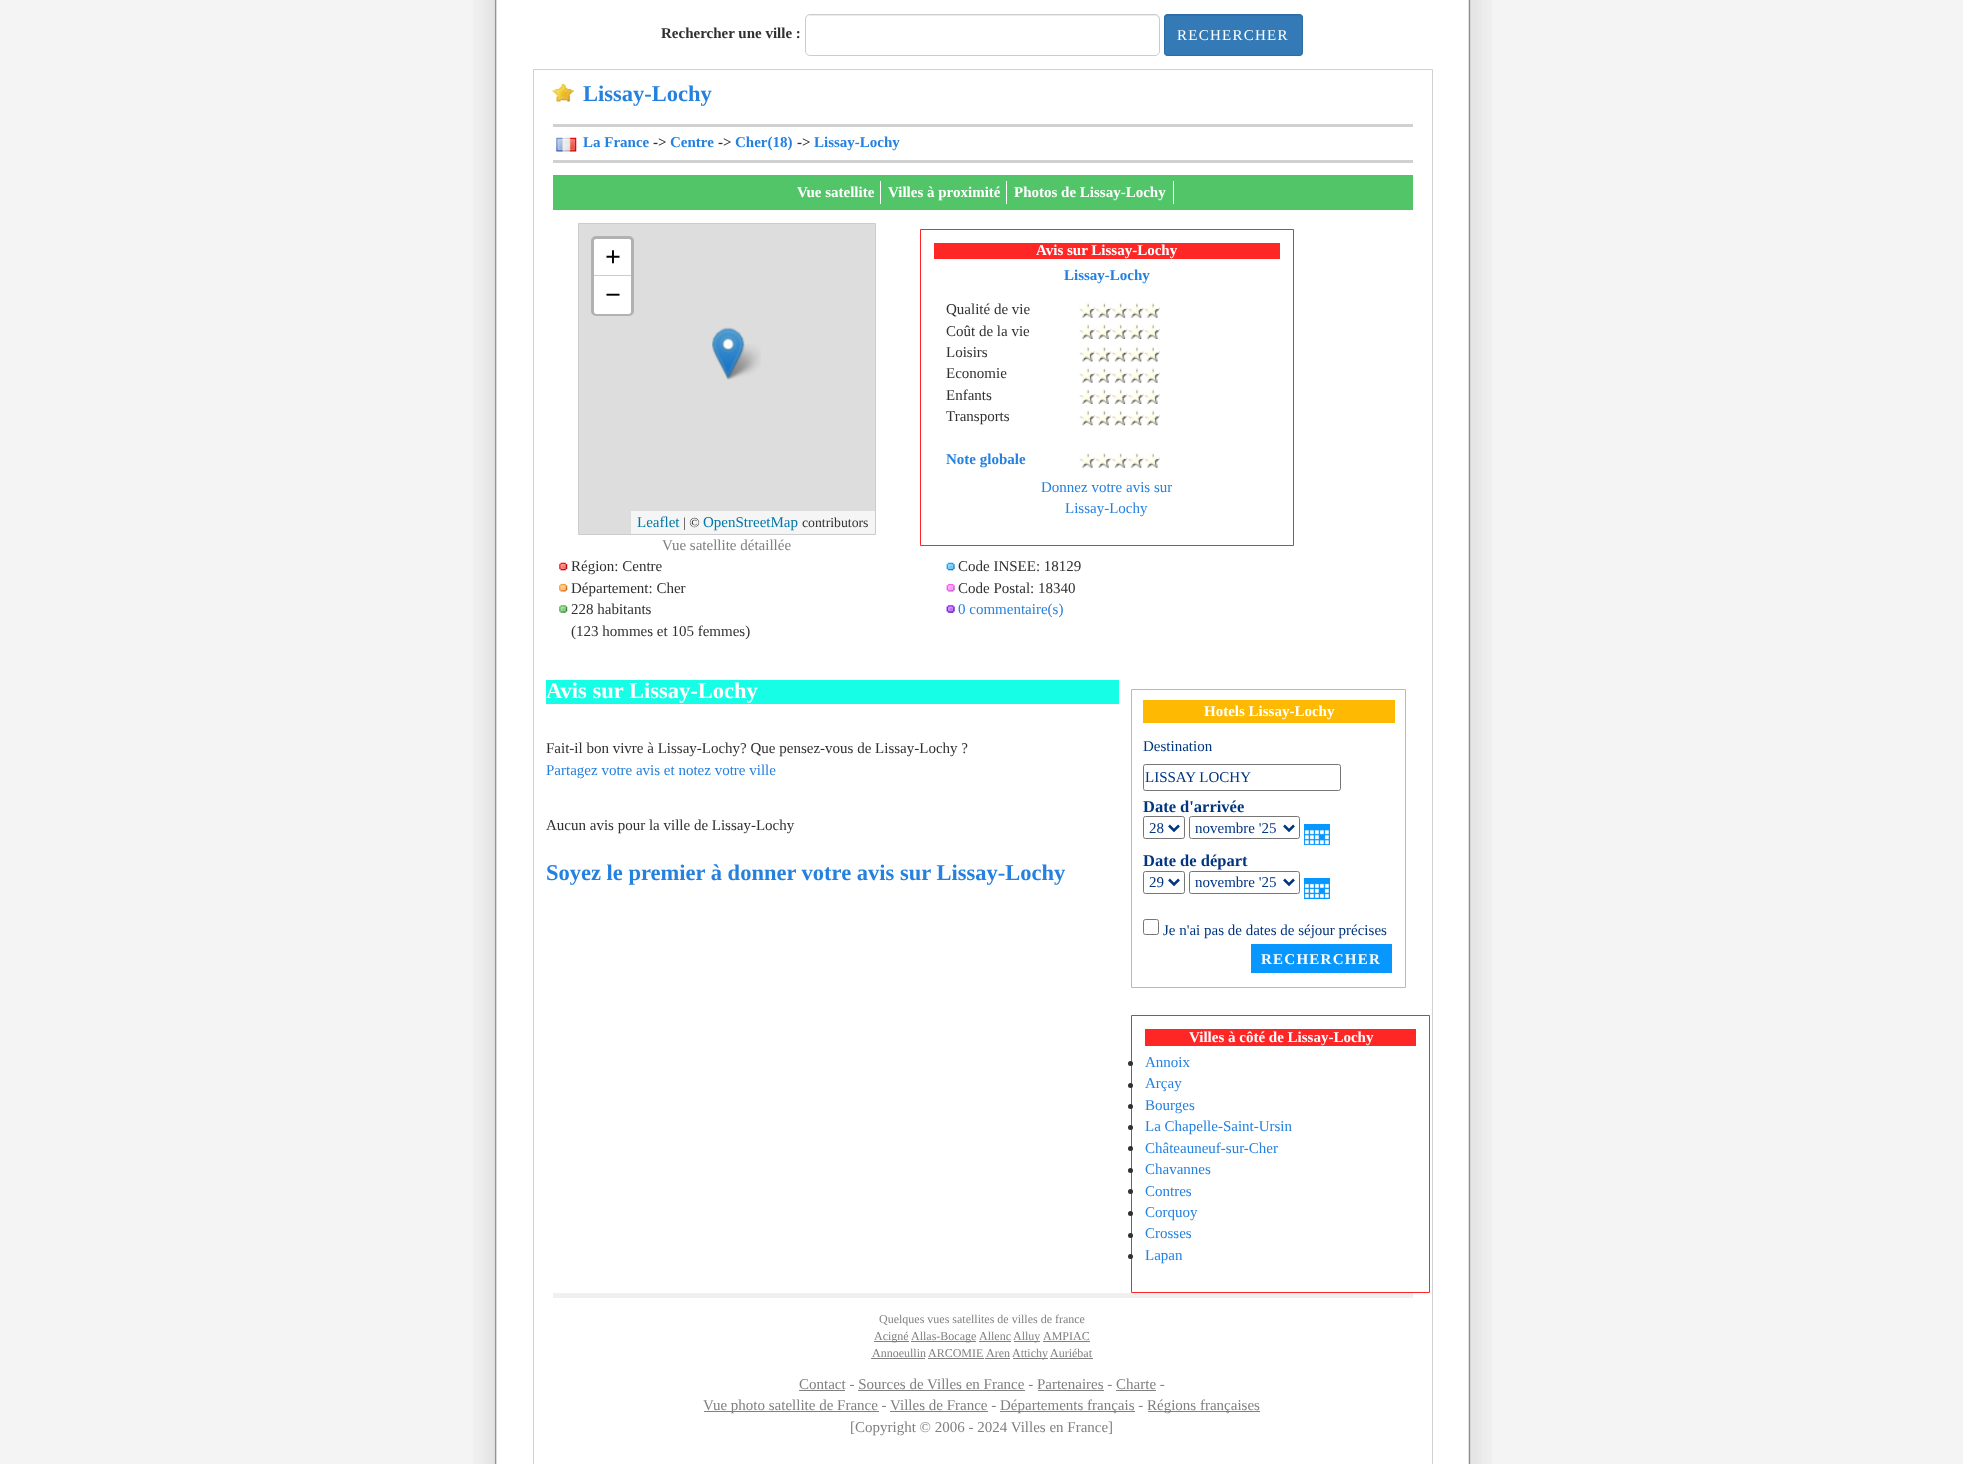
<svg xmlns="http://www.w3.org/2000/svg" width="1963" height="1464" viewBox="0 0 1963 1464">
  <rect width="100%" height="100%" fill="#f4f4f4"/>
  <image x="473" y="0" width="1019" height="1464" href="img/1.png"/>
  <path d="M810 16H1155C1157 16 1159 18 1159 20C1159 17 1158 15 1155 15H809L807 17L806 20C806 18 808 16 810 16Z" fill="#ececec"/>
  <rect x="805.5" y="14.5" width="354" height="41" rx="4.5" fill="none" stroke="#ccc"/>
  <rect x="1164" y="14" width="139" height="42" rx="4" fill="#337ab7"/>
  <path d="M1168 16H1299C1300 16 1301 17 1301 19V18C1301 16 1300 15 1298 15H1168C1166 15 1165 16 1165 18V19C1165 17 1166 16 1168 16Z" fill="#2f71a9"/>
  <rect x="1164.5" y="14.5" width="138" height="41" rx="3.5" fill="none" stroke="#2e6da4"/>
  <path d="M533.5 69.5h899v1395H533.5z" fill="none" stroke="#d0d0d0"/>
  <image x="552" y="83" width="22" height="19" href="img/2.png"/>
  <path d="M553 124h860v3H553z" fill="#d0d0d0"/>
  <path d="M553 160h860v3H553z" fill="#d0d0d0"/>
  <image x="556" y="137" width="21" height="15" href="img/3.png"/>
  <path d="M553 175h860v35H553z" fill="#51c568"/>
  <path d="M880 181h1v23H880z" fill="#fff"/>
  <path d="M1006 181h1v23H1006z" fill="#fff"/>
  <path d="M1173 181h1v23H1173z" fill="#fff"/>
  <path d="M578.5 223.5h297v311H578.5z" fill="#ddd" stroke="#ccc"/>
  <rect x="592.5" y="237.5" width="40" height="77" rx="3.5" fill="none" stroke="#b1b1b1" stroke-width="3"/>
  <path d="M596.5 239H628.5C630 239 631 240 631 241.5V276H594V241.5C594 240 595 239 596.5 239Z" fill="#fff"/>
  <path d="M594 275h37v1H594z" fill="#ccc"/>
  <path d="M594 276H631V311.5C631 313 630 314 628.5 314H596.5C595 314 594 313 594 311.5Z" fill="#fff"/>
  <path d="M631 511h244v23H631z" fill="#f5f5f5"/>
  <image x="723" y="344" width="38" height="36" href="img/5.png"/>
  <image x="712" y="327" width="33" height="53" href="img/4.png"/>
  <path d="M920.5 229.5h373v316H920.5z" fill="none" stroke="#ff2626"/>
  <path d="M934 243h346v16H934z" fill="#ff2626"/>
  <image x="1078" y="302" width="17" height="16" href="img/6.png"/>
  <image x="1095" y="302" width="17" height="16" href="img/7.png"/>
  <image x="1111" y="302" width="17" height="16" href="img/8.png"/>
  <image x="1127" y="302" width="17" height="16" href="img/9.png"/>
  <image x="1143" y="302" width="17" height="16" href="img/10.png"/>
  <image x="1078" y="323" width="17" height="16" href="img/11.png"/>
  <image x="1095" y="323" width="17" height="16" href="img/12.png"/>
  <image x="1111" y="323" width="17" height="16" href="img/13.png"/>
  <image x="1127" y="323" width="17" height="16" href="img/14.png"/>
  <image x="1143" y="323" width="17" height="16" href="img/15.png"/>
  <image x="1079" y="346" width="16" height="16" href="img/16.png"/>
  <image x="1095" y="346" width="17" height="16" href="img/17.png"/>
  <image x="1112" y="345" width="16" height="17" href="img/18.png"/>
  <image x="1127" y="345" width="17" height="17" href="img/19.png"/>
  <image x="1143" y="346" width="17" height="16" href="img/20.png"/>
  <image x="1078" y="367" width="17" height="16" href="img/6.png"/>
  <image x="1095" y="367" width="17" height="16" href="img/7.png"/>
  <image x="1111" y="367" width="17" height="16" href="img/8.png"/>
  <image x="1127" y="367" width="17" height="16" href="img/9.png"/>
  <image x="1143" y="367" width="17" height="16" href="img/10.png"/>
  <image x="1078" y="388" width="17" height="16" href="img/11.png"/>
  <image x="1095" y="388" width="17" height="16" href="img/12.png"/>
  <image x="1111" y="388" width="17" height="16" href="img/13.png"/>
  <image x="1127" y="388" width="17" height="16" href="img/14.png"/>
  <image x="1143" y="388" width="17" height="16" href="img/15.png"/>
  <image x="1079" y="409" width="16" height="17" href="img/21.png"/>
  <image x="1095" y="409" width="17" height="17" href="img/22.png"/>
  <image x="1111" y="409" width="17" height="17" href="img/23.png"/>
  <image x="1127" y="409" width="17" height="17" href="img/24.png"/>
  <image x="1143" y="409" width="17" height="17" href="img/25.png"/>
  <image x="1078" y="452" width="17" height="16" href="img/6.png"/>
  <image x="1095" y="452" width="17" height="16" href="img/7.png"/>
  <image x="1111" y="452" width="17" height="16" href="img/8.png"/>
  <image x="1127" y="452" width="17" height="16" href="img/9.png"/>
  <image x="1143" y="452" width="17" height="16" href="img/10.png"/>
  <image x="559" y="562" width="9" height="9" href="img/26.png"/>
  <image x="559" y="583" width="9" height="9" href="img/27.png"/>
  <image x="559" y="605" width="9" height="8" href="img/28.png"/>
  <image x="946" y="562" width="9" height="9" href="img/29.png"/>
  <image x="946" y="583" width="9" height="9" href="img/30.png"/>
  <image x="946" y="605" width="9" height="8" href="img/31.png"/>
  <path d="M546 680h573v24H546z" fill="#17fee6"/>
  <path d="M1131.5 689.5h274v298H1131.5z" fill="none" stroke="#feba02"/>
  <path d="M1143 700h252v23H1143z" fill="#feba02"/>
  <rect x="1143.5" y="764.5" width="197" height="26" rx="2" fill="none" stroke="#767676"/>
  <rect x="1143.5" y="816.5" width="41" height="22" rx="2" fill="none" stroke="#767676"/>
  <path d="M1169 825.5L1174 830.5L1179 825.5" fill="none" stroke="#003580" stroke-width="2.5"/>
  <rect x="1189.5" y="816.5" width="110" height="22" rx="2" fill="none" stroke="#767676"/>
  <path d="M1284 825.5L1289 830.5L1294 825.5" fill="none" stroke="#003580" stroke-width="2.5"/>
  <path d="M1304 824h26v21H1304z" fill="#0896ff"/>
  <image x="1304" y="830" width="25" height="15" href="img/32.png"/>
  <rect x="1143.5" y="871.5" width="41" height="22" rx="2" fill="none" stroke="#767676"/>
  <path d="M1169 879.5L1174 884.5L1179 879.5" fill="none" stroke="#003580" stroke-width="2.5"/>
  <rect x="1189.5" y="871.5" width="110" height="22" rx="2" fill="none" stroke="#767676"/>
  <path d="M1284 879.5L1289 884.5L1294 879.5" fill="none" stroke="#003580" stroke-width="2.5"/>
  <path d="M1304 878h26v21H1304z" fill="#0896ff"/>
  <image x="1304" y="883" width="25" height="15" href="img/33.png"/>
  <rect x="1143.5" y="919.5" width="15" height="15" rx="2" fill="none" stroke="#767676"/>
  <path d="M1251 944h141v29H1251z" fill="#0896ff"/>
  <path d="M1131.5 1015.5h298v277H1131.5z" fill="none" stroke="#ff2626"/>
  <path d="M1145 1029h271v17H1145z" fill="#ff2626"/>
  <circle cx="1130.5" cy="1063.5" r="2.5" fill="#303030"/>
  <circle cx="1130.5" cy="1085.5" r="2.5" fill="#303030"/>
  <circle cx="1130.5" cy="1106.5" r="2.5" fill="#303030"/>
  <circle cx="1130.5" cy="1127.5" r="2.5" fill="#303030"/>
  <circle cx="1130.5" cy="1148.5" r="2.5" fill="#303030"/>
  <circle cx="1130.5" cy="1170.5" r="2.5" fill="#303030"/>
  <circle cx="1130.5" cy="1191.5" r="2.5" fill="#303030"/>
  <circle cx="1130.5" cy="1213.5" r="2.5" fill="#303030"/>
  <circle cx="1130.5" cy="1235.5" r="2.5" fill="#303030"/>
  <circle cx="1130.5" cy="1256.5" r="2.5" fill="#303030"/>
  <path d="M553 1293h860v5H553z" fill="#f0f0f0"/>
  <path d="M874 1341h35v1H874z" fill="#808080"/>
  <path d="M911 1341h65v1H911z" fill="#808080"/>
  <path d="M979 1341h32v1H979z" fill="#808080"/>
  <path d="M1014 1341h26v1H1014z" fill="#808080"/>
  <path d="M1043 1341h47v1H1043z" fill="#808080"/>
  <path d="M871 1358h54v1H871z" fill="#808080"/>
  <path d="M928 1358h56v1H928z" fill="#808080"/>
  <path d="M985 1358h25v1H985z" fill="#808080"/>
  <path d="M1013 1358h35v1H1013z" fill="#808080"/>
  <path d="M1050 1358h43v1H1050z" fill="#808080"/>
  <path d="M799 1390h46v1H799z" fill="#808080"/>
  <path d="M858 1390h167v1H858z" fill="#808080"/>
  <path d="M1038 1390h66v1H1038z" fill="#808080"/>
  <path d="M1116 1390h40v1H1116z" fill="#808080"/>
  <path d="M704 1411h175v1H704z" fill="#808080"/>
  <path d="M1000 1411h135v1H1000z" fill="#808080"/>
  <path d="M1148 1411h112v1H1148z" fill="#808080"/>
  <path d="M890 1411h98v1H890z" fill="#808080"/>
  <text x="661" y="38" font-family="Liberation Serif" font-size="15" font-weight="bold" fill="#303030">Rechercher une ville :</text>
  <text x="1177" y="40" font-family="Liberation Serif" font-size="15" letter-spacing="1.25" fill="#fff">RECHERCHER</text>
  <text x="583" y="101" font-family="Liberation Serif" font-size="22.5" font-weight="bold" fill="#2581df">Lissay-Lochy</text>
  <text x="583" y="147" font-family="Liberation Serif" font-size="15" font-weight="bold" fill="#2581df">La France</text>
  <text x="653" y="147" font-family="Liberation Serif" font-size="15" font-weight="bold" fill="#303030">-&gt;</text>
  <text x="670" y="147" font-family="Liberation Serif" font-size="15" font-weight="bold" fill="#2581df">Centre</text>
  <text x="718" y="147" font-family="Liberation Serif" font-size="15" font-weight="bold" fill="#303030">-&gt;</text>
  <text x="735" y="147" font-family="Liberation Serif" font-size="15" font-weight="bold" fill="#2581df">Cher(18)</text>
  <text x="797" y="147" font-family="Liberation Serif" font-size="15" font-weight="bold" fill="#303030">-&gt;</text>
  <text x="814" y="147" font-family="Liberation Serif" font-size="15" font-weight="bold" fill="#2581df">Lissay-Lochy</text>
  <g font-family="Liberation Serif" font-size="15" font-weight="bold" fill="#fff">
    <text x="797" y="197">Vue satellite</text>
    <text x="888" y="197">Villes à proximité</text>
    <text x="1014" y="197">Photos de Lissay-Lochy</text>
  </g>
  <g font-family="Liberation Serif" font-size="28" font-weight="bold" fill="#000">
    <text x="605" y="266">+</text>
    <text x="605" y="304">−</text>
  </g>
  <text x="637" y="527" font-family="Liberation Serif" font-size="15" fill="#0078a8">Leaflet</text>
  <text x="683" y="527" font-family="Liberation Serif" font-size="13.75" fill="#303030">| ©</text>
  <text x="703" y="527" font-family="Liberation Serif" font-size="15" fill="#0078a8">OpenStreetMap</text>
  <text x="802" y="527" font-family="Liberation Serif" font-size="13.75" fill="#303030">contributors</text>
  <text x="662" y="550" font-family="Liberation Serif" font-size="15" fill="#808080">Vue satellite détaillée</text>
  <text x="1036" y="255" font-family="Liberation Serif" font-size="15" font-weight="bold" fill="#fff">Avis sur Lissay-Lochy</text>
  <text x="1064" y="280" font-family="Liberation Serif" font-size="15" font-weight="bold" fill="#2581df">Lissay-Lochy</text>
  <g font-family="Liberation Serif" font-size="15" fill="#303030">
    <text x="946" y="314">Qualité de vie</text>
    <text x="946" y="336">Coût de la vie</text>
    <text x="946" y="357">Loisirs</text>
    <text x="946" y="378">Economie</text>
    <text x="946" y="400">Enfants</text>
    <text x="946" y="421">Transports</text>
  </g>
  <text x="946" y="464" font-family="Liberation Serif" font-size="15" font-weight="bold" fill="#2581df">Note globale</text>
  <g font-family="Liberation Serif" font-size="15" fill="#2581df">
    <text x="1041" y="492">Donnez votre avis sur</text>
    <text x="1065" y="513">Lissay-Lochy</text>
  </g>
  <g font-family="Liberation Serif" font-size="15" fill="#303030">
    <text x="571" y="571">Région: Centre</text>
    <text x="571" y="593">Département: Cher</text>
    <text x="571" y="614">228 habitants</text>
    <text x="571" y="636">(123 hommes et 105 femmes)</text>
    <text x="958" y="571">Code INSEE: 18129</text>
    <text x="958" y="593">Code Postal: 18340</text>
  </g>
  <text x="958" y="614" font-family="Liberation Serif" font-size="15" fill="#2581df">0 commentaire(s)</text>
  <text x="546" y="698" font-family="Liberation Serif" font-size="22.5" font-weight="bold" fill="#fff">Avis sur Lissay-Lochy</text>
  <text x="546" y="753" font-family="Liberation Serif" font-size="15" fill="#303030">Fait-il bon vivre à Lissay-Lochy? Que pensez-vous de Lissay-Lochy ?</text>
  <text x="546" y="775" font-family="Liberation Serif" font-size="15" fill="#2581df">Partagez votre avis et notez votre ville</text>
  <text x="546" y="830" font-family="Liberation Serif" font-size="15" fill="#303030">Aucun avis pour la ville de Lissay-Lochy</text>
  <text x="546" y="880" font-family="Liberation Serif" font-size="22.5" font-weight="bold" fill="#2581df">Soyez le premier à donner votre avis sur Lissay-Lochy</text>
  <text x="1204" y="716" font-family="Liberation Serif" font-size="15" font-weight="bold" fill="#fff">Hotels Lissay-Lochy</text>
  <g font-family="Liberation Serif" font-size="15" fill="#003580">
    <text x="1143" y="751">Destination</text>
    <text x="1145" y="782">LISSAY LOCHY</text>
  </g>
  <text x="1143" y="812" font-family="Liberation Serif" font-size="16.5" font-weight="bold" fill="#003580">Date d'arrivée</text>
  <g font-family="Liberation Serif" font-size="15" fill="#003580">
    <text x="1149" y="833">28</text>
    <text x="1195" y="833">novembre '25</text>
  </g>
  <text x="1143" y="866" font-family="Liberation Serif" font-size="16.5" font-weight="bold" fill="#003580">Date de départ</text>
  <g font-family="Liberation Serif" font-size="15" fill="#003580">
    <text x="1149" y="887">29</text>
    <text x="1195" y="887">novembre '25</text>
    <text x="1163" y="935">Je n'ai pas de dates de séjour précises</text>
  </g>
  <text x="1261" y="964" font-family="Liberation Serif" font-size="15" font-weight="bold" letter-spacing="1.25" fill="#fff">RECHERCHER</text>
  <text x="1189" y="1042" font-family="Liberation Serif" font-size="15" font-weight="bold" fill="#fff">Villes à côté de Lissay-Lochy</text>
  <g font-family="Liberation Serif" font-size="15" fill="#2581df">
    <text x="1145" y="1067">Annoix</text>
    <text x="1145" y="1088">Arçay</text>
    <text x="1145" y="1110">Bourges</text>
    <text x="1145" y="1131">La Chapelle-Saint-Ursin</text>
    <text x="1145" y="1153">Châteauneuf-sur-Cher</text>
    <text x="1145" y="1174">Chavannes</text>
    <text x="1145" y="1196">Contres</text>
    <text x="1145" y="1217">Corquoy</text>
    <text x="1145" y="1238">Crosses</text>
    <text x="1145" y="1260">Lapan</text>
  </g>
  <g font-family="Liberation Serif" font-size="12" fill="#808080">
    <text x="879" y="1323">Quelques vues satellites de villes de france</text>
    <text x="874" y="1340">Acigné</text>
    <text x="911" y="1340">Allas-Bocage</text>
    <text x="979" y="1340">Allenc</text>
    <text x="1013" y="1340">Alluy</text>
    <text x="1043" y="1340">AMPIAC</text>
    <text x="872" y="1357">Annoeullin</text>
    <text x="928" y="1357">ARCOMIE</text>
    <text x="986" y="1357">Aren</text>
    <text x="1012" y="1357">Attichy</text>
    <text x="1050" y="1357">Auriébat</text>
  </g>
  <g font-family="Liberation Serif" font-size="15" fill="#808080">
    <text x="799" y="1389">Contact - Sources de Villes en France - Partenaires - Charte -</text>
    <text x="703" y="1410">Vue photo satellite de France - Villes de France -</text>
    <text x="1000" y="1410">Départements français -</text>
    <text x="1147" y="1410">Régions françaises</text>
    <text x="850" y="1432">[Copyright © 2006 - 2024 Villes en France]</text>
  </g>
</svg>
